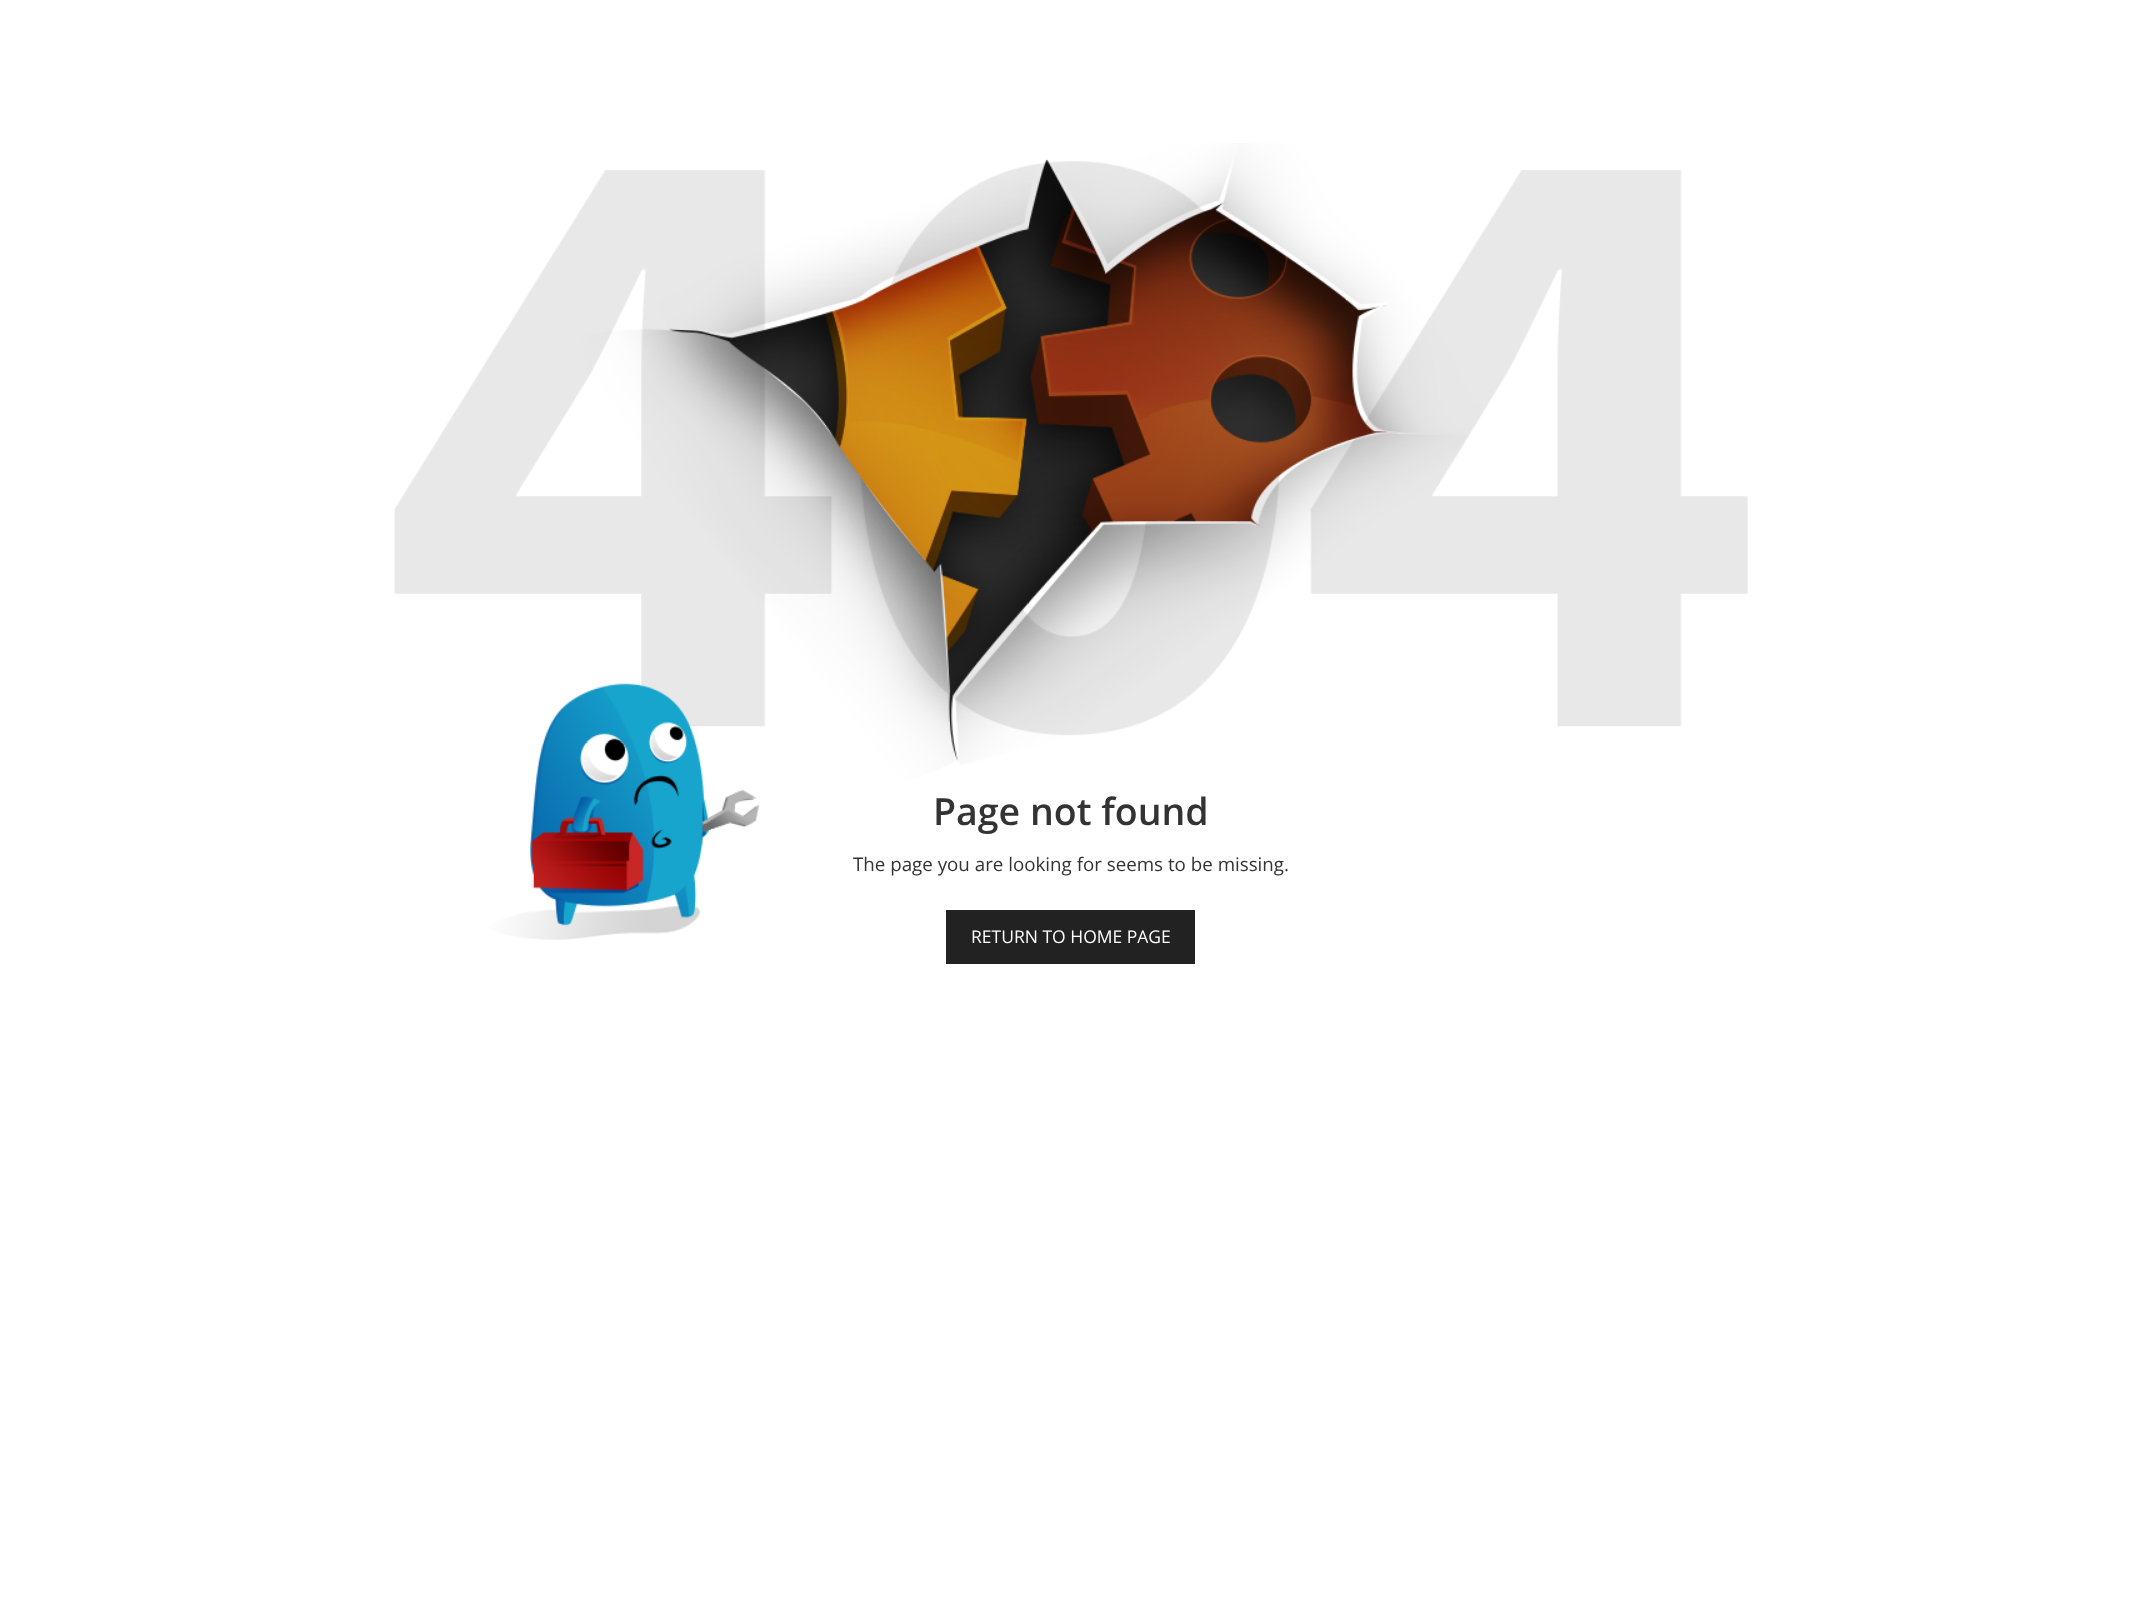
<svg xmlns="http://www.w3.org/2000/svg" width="2141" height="1618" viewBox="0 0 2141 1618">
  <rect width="100%" height="100%" fill="#fff"/>
  <image x="394" y="143" width="1354" height="797" href="img/1.png"/>
  <path d="M946 910h249v54H946z" fill="#222"/>
  <text x="933" y="825" font-family="Open Sans" font-size="37.5" font-weight="600" fill="#333">Page not found</text>
  <text x="853" y="871" font-family="Open Sans" font-size="18.75" fill="#333">The page you are looking for seems to be missing.</text>
  <text x="971" y="943" font-family="Open Sans" font-size="17.5" fill="#fff">RETURN TO HOME PAGE</text>
</svg>
